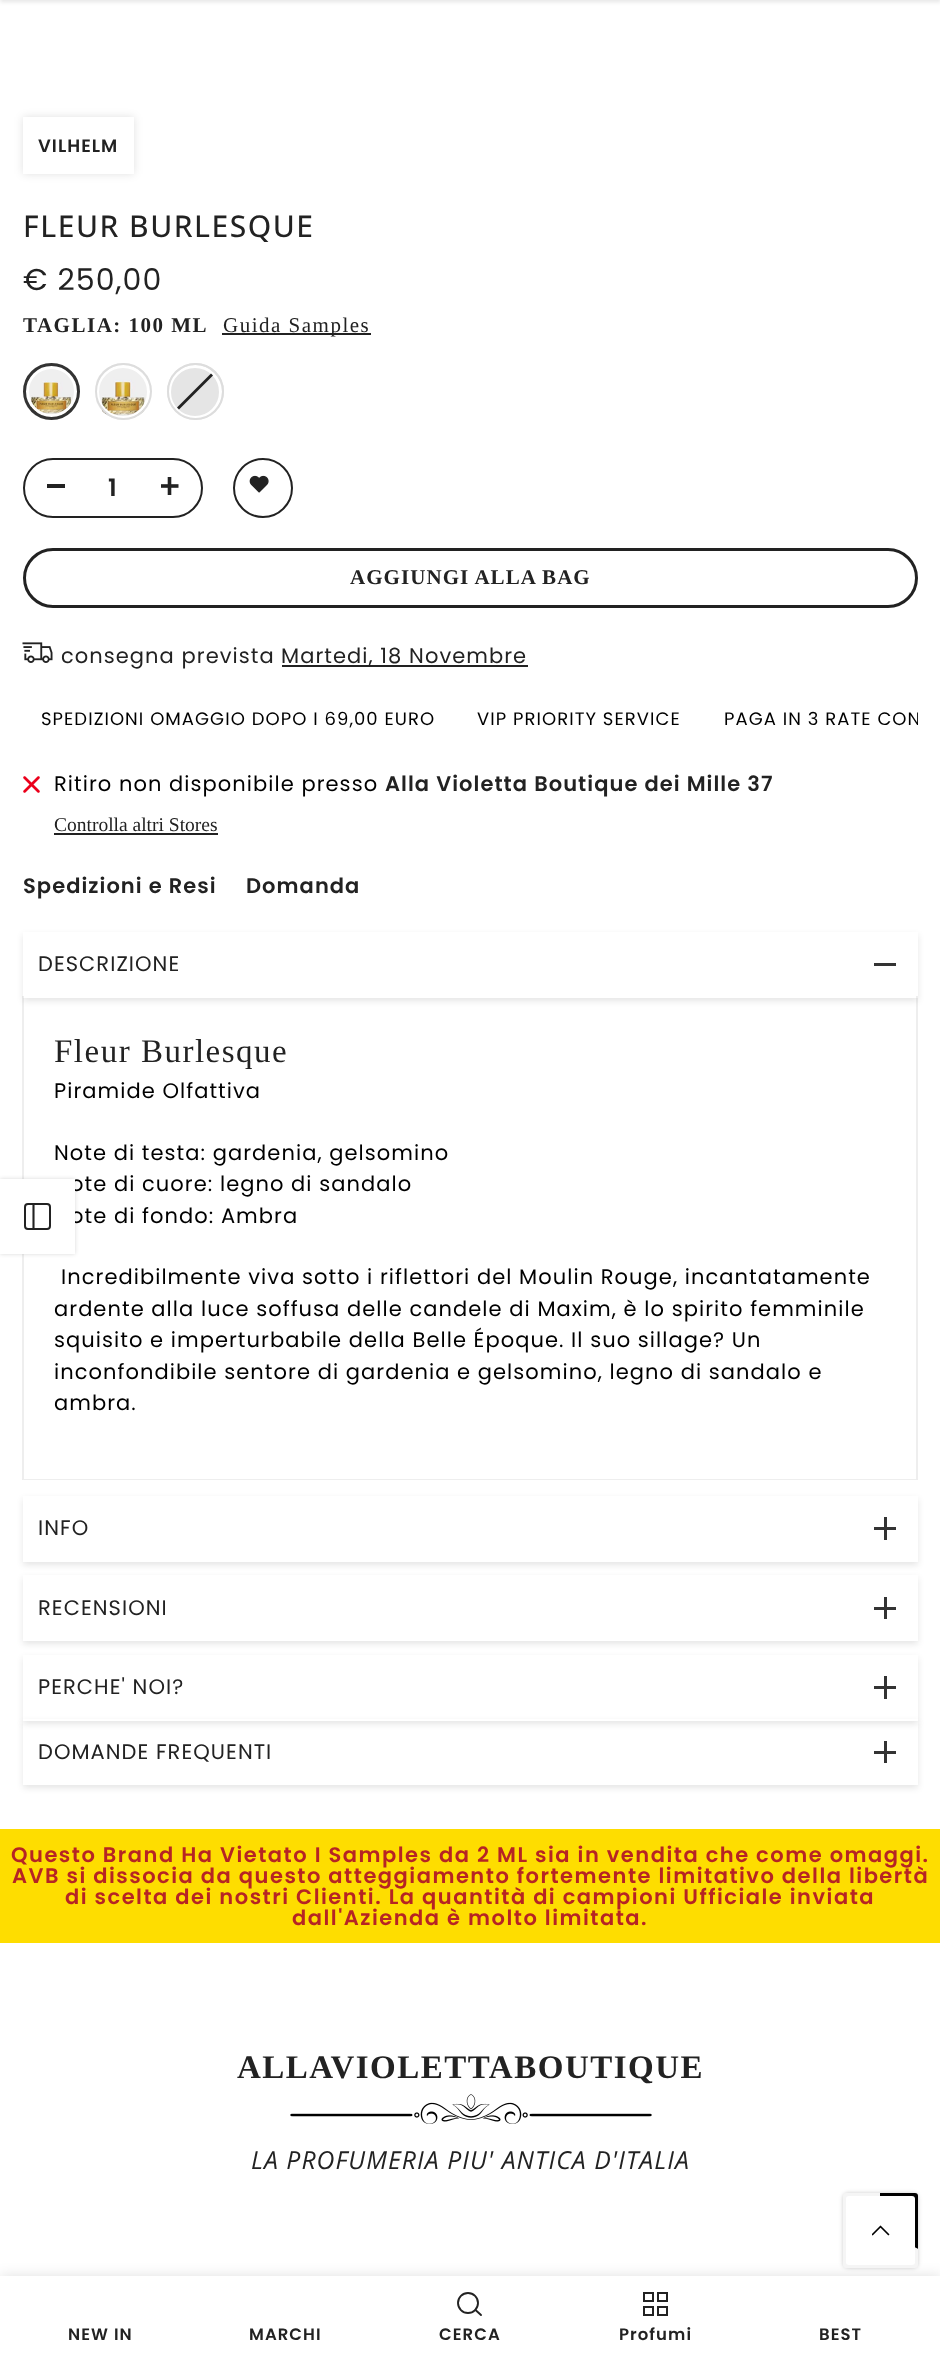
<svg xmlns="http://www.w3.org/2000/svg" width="940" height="2358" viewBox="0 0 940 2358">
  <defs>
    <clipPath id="clip1"><path d="M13 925H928V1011H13ZM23 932H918V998H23Z" clip-rule="evenodd"/></clipPath>
    <clipPath id="clip2"><path d="M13 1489H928V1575H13ZM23 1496H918V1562H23Z" clip-rule="evenodd"/></clipPath>
    <clipPath id="clip3"><path d="M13 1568H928V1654H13ZM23 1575H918V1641H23Z" clip-rule="evenodd"/></clipPath>
    <clipPath id="clip4"><path d="M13 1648H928V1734H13ZM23 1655H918V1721H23Z" clip-rule="evenodd"/></clipPath>
    <clipPath id="clip5"><path d="M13 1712H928V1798H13ZM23 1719H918V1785H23Z" clip-rule="evenodd"/></clipPath>
    <clipPath id="clip6"><path d="M23 702h895v36H23z"/></clipPath>
  </defs>
  <rect width="100%" height="100%" fill="#fff"/>
  <path d="M0 -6h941v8H0z" fill="#0000001a" filter="blur(2px)"/>
  <path d="M23 117h111v57H23z" fill="#0000001f" filter="blur(4px)"/>
  <path d="M23 117h111v57H23z" fill="#fff"/>
  <path d="M222 333h149v2H222z" fill="#222"/>
  <image x="25" y="363" width="52" height="57" href="img/1.png"/>
  <circle cx="51.5" cy="391.5" r="24" fill="none" stroke="#fff" stroke-width="3"/>
  <circle cx="51.5" cy="391.5" r="27" fill="none" stroke="#333" stroke-width="3"/>
  <image x="96" y="363" width="54" height="57" href="img/2.png"/>
  <circle cx="123" cy="392" r="25.5" fill="none" stroke="#fff" stroke-width="3"/>
  <circle cx="123.5" cy="391.5" r="27.5" fill="none" stroke="#ddd" stroke-width="2"/>
  <circle cx="195.5" cy="391.5" r="28.5" fill="#e5e5e5"/>
  <circle cx="195" cy="392" r="25.5" fill="none" stroke="#fff" stroke-width="3"/>
  <circle cx="195.5" cy="391.5" r="27.5" fill="none" stroke="#ddd" stroke-width="2"/>
  <path d="M213 375.5L179 409.5L177 407.5L211 373.5Z" fill="#222"/>
  <rect x="24" y="459" width="178" height="58" rx="29" fill="none" stroke="#222" stroke-width="2"/>
  <path d="M47 484h18v4H47z" fill="#222"/>
  <image x="161" y="477" width="18" height="18" href="img/3.png"/>
  <circle cx="263" cy="488" r="29" fill="none" stroke="#222" stroke-width="2"/>
  <image x="249" y="475" width="20" height="18" href="img/4.png"/>
  <rect x="24.5" y="549.5" width="892" height="57" rx="28.5" fill="none" stroke="#222" stroke-width="3"/>
  <image x="22" y="642" width="31" height="21" href="img/5.png"/>
  <path d="M282 665h246v2H282z" fill="#222"/>
  <image x="23" y="776" width="17" height="17" href="img/6.png"/>
  <path d="M54 833h164v2H54z" fill="#222"/>
  <g clip-path="url(#clip1)">
    <path d="M23 935h895v66H23z" fill="#0000001a" filter="blur(3px)"/>
  </g>
  <path d="M874 963h22v3H874z" fill="#333"/>
  <path d="M918 996V1480L916 1479V996Z" fill="#22222214"/>
  <path d="M918 1480H22L24 1479H916Z" fill="#22222214"/>
  <path d="M22 1480V996H24V1479Z" fill="#22222214"/>
  <g clip-path="url(#clip2)">
    <path d="M23 1499h895v66H23z" fill="#0000001a" filter="blur(3px)"/>
  </g>
  <path d="M884 1517h3v23H884z" fill="#333"/>
  <path d="M874 1527h22v3H874z" fill="#333"/>
  <g clip-path="url(#clip3)">
    <path d="M23 1578h895v66H23z" fill="#0000001a" filter="blur(3px)"/>
  </g>
  <path d="M884 1597h3v22H884z" fill="#333"/>
  <path d="M874 1607h22v3H874z" fill="#333"/>
  <g clip-path="url(#clip4)">
    <path d="M23 1658h895v66H23z" fill="#0000001a" filter="blur(3px)"/>
  </g>
  <path d="M884 1676h3v23H884z" fill="#333"/>
  <path d="M874 1686h22v3H874z" fill="#333"/>
  <g clip-path="url(#clip5)">
    <path d="M23 1722h895v66H23z" fill="#0000001a" filter="blur(3px)"/>
  </g>
  <path d="M884 1741h3v22H884z" fill="#333"/>
  <path d="M874 1751h22v3H874z" fill="#333"/>
  <path d="M0 1179h75v75H0z" fill="#00000026" filter="blur(2px)"/>
  <path d="M0 1829h940v114H0z" fill="#fedd00"/>
  <image x="290" y="2094" width="362" height="30" href="img/7.png"/>
  <rect x="843" y="2193" width="75" height="75" rx="5" fill="#00000033" filter="blur(2px)"/>
  <path d="M880 2230L918 2249V2196C918 2194 917 2193 915 2193H880Z" fill="#000"/>
  <path d="M0 2276h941v82H0z" fill="#0000001f" filter="blur(7px)"/>
  <path d="M880 2230V2193H846C844 2193 843 2194 843 2196V2265C843 2267 844 2268 846 2268H915C917 2268 918 2267 918 2265V2249Z" fill="#f5f5f5"/>
  <rect x="846" y="2196" width="69" height="69" rx="3" fill="#fff"/>
  <image x="872" y="2225" width="18" height="11" href="img/8.png"/>
  <path d="M0 2276h940v82H0z" fill="#fff"/>
  <circle cx="468" cy="2303" r="10" fill="none" stroke="#222" stroke-width="1.9"/>
  <path d="M481 2315L475.5 2310" fill="none" stroke="#222" stroke-width="1.9" stroke-linecap="round" stroke-linejoin="round"/>
  <path d="M644 2293h9v8H644z" fill="none" stroke="#222" stroke-width="2"/>
  <path d="M658 2293h9v8H658z" fill="none" stroke="#222" stroke-width="2"/>
  <path d="M644 2307h9v8H644z" fill="none" stroke="#222" stroke-width="2"/>
  <path d="M658 2307h9v8H658z" fill="none" stroke="#222" stroke-width="2"/>
  <text x="38" y="152" font-family="Poppins" font-size="18" font-weight="600" letter-spacing="1.05" fill="#222">VILHELM</text>
  <text x="23" y="237" font-family="Open Sans" font-size="30" font-weight="500" letter-spacing="1.5" fill="#222">FLEUR BURLESQUE</text>
  <text x="23" y="290" font-family="Poppins" font-size="30" letter-spacing="1.05" fill="#222">€ 250,00</text>
  <text x="23" y="332" font-family="Liberation Serif" font-size="21" font-weight="bold" letter-spacing="1.5" fill="#222">TAGLIA: 100 ML</text>
  <text x="223" y="332" font-family="Liberation Serif" font-size="21" letter-spacing="1.5" fill="#222">Guida Samples</text>
  <text x="108" y="496" font-family="Poppins" font-size="24" font-weight="600" fill="#222">1</text>
  <text x="350" y="584" font-family="Liberation Serif" font-size="21" font-weight="bold" letter-spacing="1.05" fill="#222">AGGIUNGI ALLA BAG</text>
  <g font-family="Poppins" font-size="21" letter-spacing="1.05" fill="#222">
    <text x="61" y="663">consegna prevista</text>
    <text x="281" y="663">Martedi, 18 Novembre</text>
  </g>
  <g font-family="Poppins" font-size="18" letter-spacing="1.05" fill="#000">
    <text x="41" y="725">SPEDIZIONI OMAGGIO DOPO I 69,00 EURO</text>
    <text x="477" y="725">VIP PRIORITY SERVICE</text>
  </g>
  <g clip-path="url(#clip6)">
    <text x="724" y="725" font-family="Poppins" font-size="18" letter-spacing="1.05" fill="#000">PAGA IN 3 RATE CON</text>
  </g>
  <text x="54" y="791" font-family="Poppins" font-size="21" letter-spacing="1.05" fill="#000">Ritiro non disponibile presso</text>
  <text x="385" y="791" font-family="Poppins" font-size="21" font-weight="600" letter-spacing="1.05" fill="#222">Alla Violetta Boutique dei Mille 37</text>
  <text x="54" y="831" font-family="Liberation Serif" font-size="19.5" fill="#222">Controlla altri Stores</text>
  <g font-family="Poppins" font-size="21" font-weight="600" letter-spacing="1.05" fill="#222">
    <text x="23" y="893">Spedizioni e Resi</text>
    <text x="246" y="893">Domanda</text>
  </g>
  <text x="38" y="971" font-family="Poppins" font-size="21" letter-spacing="1.05" fill="#222">DESCRIZIONE</text>
  <text x="54" y="1062" font-family="Liberation Serif" font-size="33" letter-spacing="1.5" fill="#222">Fleur Burlesque</text>
  <g font-family="Poppins" font-size="21" letter-spacing="1.05" fill="#000">
    <text x="54" y="1098">Piramide Olfattiva</text>
    <text x="54" y="1160">Note di testa: gardenia, gelsomino</text>
    <text x="70" y="1191">ote di cuore: legno di sandalo</text>
    <text x="70" y="1223">ote di fondo: Ambra</text>
    <text x="61" y="1284">Incredibilmente viva sotto i riflettori del Moulin Rouge, incantatamente</text>
    <text x="54" y="1316">ardente alla luce soffusa delle candele di Maxim, è lo spirito femminile</text>
    <text x="54" y="1347">squisito e imperturbabile della Belle Époque. Il suo sillage? Un</text>
    <text x="54" y="1379">inconfondibile sentore di gardenia e gelsomino, legno di sandalo e</text>
    <text x="54" y="1410">ambra.</text>
  </g>
  <g font-family="Poppins" font-size="21" letter-spacing="1.05" fill="#222">
    <text x="38" y="1535">INFO</text>
    <text x="38" y="1615">RECENSIONI</text>
    <text x="38" y="1694">PERCHE' NOI?</text>
    <text x="38" y="1759">DOMANDE FREQUENTI</text>
  </g>
  <path d="M0 1179h75v75H0z" fill="#fff"/>
  <rect x="25" y="1204" width="25" height="25" rx="3" fill="none" stroke="#222" stroke-width="2"/>
  <path d="M33.5 1204V1229" fill="none" stroke="#222" stroke-width="2.1" stroke-linecap="round" stroke-linejoin="round"/>
  <g font-family="Poppins" font-size="21" font-weight="600" letter-spacing="1.5" fill="#b62424">
    <text x="11" y="1862">Questo Brand Ha Vietato I Samples da 2 ML sia in vendita che come omaggi.</text>
    <text x="12" y="1883">AVB si dissocia da questo atteggiamento fortemente limitativo della libertà</text>
    <text x="65" y="1904">di scelta dei nostri Clienti. La quantità di campioni Ufficiale inviata</text>
    <text x="292" y="1925">dall'Azienda è molto limitata.</text>
  </g>
  <text x="237" y="2078" font-family="Liberation Serif" font-size="33" font-weight="bold" letter-spacing="1.5" fill="#222">ALLAVIOLETTABOUTIQUE</text>
  <text x="251" y="2169" font-family="Open Sans" font-size="24.75" font-style="italic" letter-spacing="1.05" fill="#222">LA PROFUMERIA PIU' ANTICA D'ITALIA</text>
  <g font-family="Poppins" font-size="16.5" font-weight="600" letter-spacing="1.05" fill="#222">
    <text x="68" y="2340">NEW IN</text>
    <text x="249" y="2340">MARCHI</text>
    <text x="439" y="2340">CERCA</text>
    <text x="619" y="2340">Profumi</text>
    <text x="819" y="2340">BEST</text>
  </g>
</svg>
